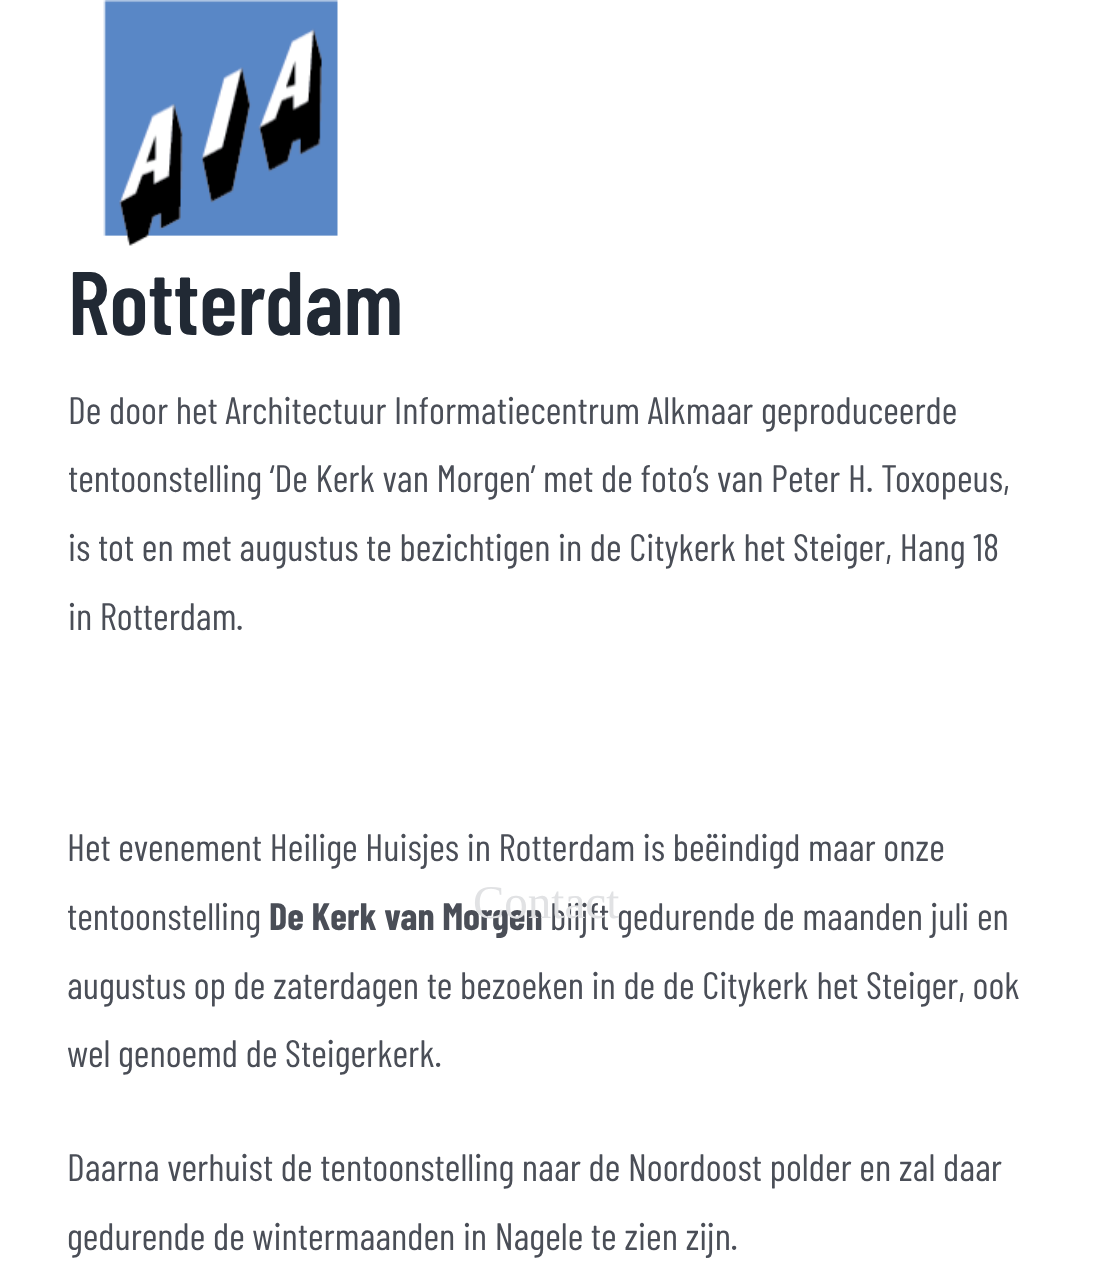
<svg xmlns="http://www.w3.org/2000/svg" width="1093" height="1266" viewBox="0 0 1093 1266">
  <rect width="100%" height="100%" fill="#fff"/>
  <image x="103" y="0" width="235" height="246" href="img/1.png"/>
  <text x="68" y="335" font-family="Barlow Condensed" font-size="90" font-weight="600" fill="#212934">Rotterdam</text>
  <g font-family="Barlow Condensed" font-size="38.25" fill="#4a4e57">
    <text x="68" y="424">De door het Architectuur Informatiecentrum Alkmaar geproduceerde</text>
    <text x="68" y="492">tentoonstelling ‘De Kerk van Morgen’ met de foto’s van Peter H. Toxopeus,</text>
    <text x="68" y="561">is tot en met augustus te bezichtigen in de Citykerk het Steiger, Hang 18</text>
    <text x="68" y="630">in Rotterdam.</text>
    <text x="67" y="861">Het evenement Heilige Huisjes in Rotterdam is beëindigd maar onze</text>
    <text x="67" y="930">tentoonstelling</text>
  </g>
  <text x="269" y="930" font-family="Barlow Condensed" font-size="38.25" font-weight="bold" fill="#4a4e57">De Kerk van Morgen</text>
  <g font-family="Barlow Condensed" font-size="38.25" fill="#4a4e57">
    <text x="550" y="930">blijft gedurende de maanden juli en</text>
    <text x="67" y="999">augustus op de zaterdagen te bezoeken in de de Citykerk het Steiger, ook</text>
    <text x="67" y="1067">wel genoemd de Steigerkerk.</text>
    <text x="67" y="1181">Daarna verhuist de tentoonstelling naar de Noordoost polder en zal daar</text>
    <text x="67" y="1250">gedurende de wintermaanden in Nagele te zien zijn.</text>
  </g>
  <text x="473" y="918" font-family="Liberation Serif" font-size="47" fill="#e1e2e4">Contact</text>
</svg>
